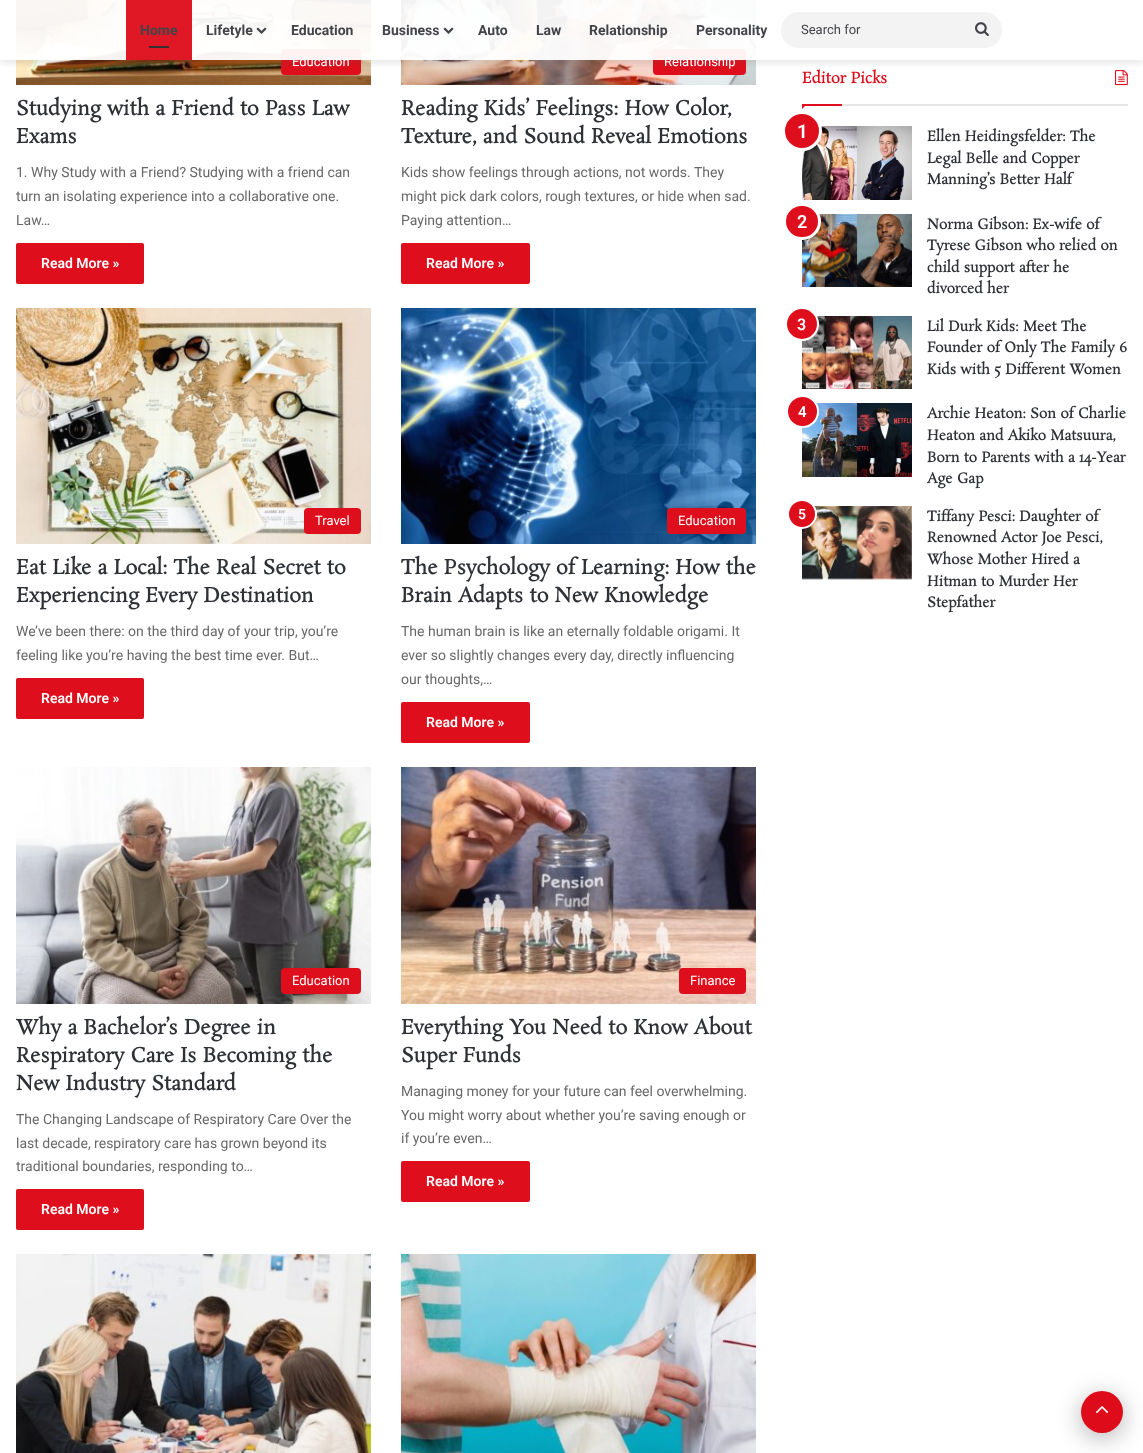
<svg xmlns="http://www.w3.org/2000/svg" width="1143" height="1453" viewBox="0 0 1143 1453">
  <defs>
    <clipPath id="clip1"><path d="M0 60h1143v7H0z"/></clipPath>
  </defs>
  <rect width="100%" height="100%" fill="#fff"/>
  <image x="16" y="0" width="355" height="85" href="img/4.png"/>
  <rect x="281" y="49" width="80" height="26" rx="4" fill="#de0e1c"/>
  <image x="401" y="0" width="355" height="85" href="img/5.png"/>
  <rect x="653" y="49" width="93" height="26" rx="4" fill="#de0e1c"/>
  <image x="1115" y="70" width="13" height="16" href="img/12.png"/>
  <g clip-path="url(#clip1)">
    <path d="M0 2h1143v60H0z" fill="#63636333" filter="blur(4px)"/>
  </g>
  <rect x="781" y="12" width="221" height="36" rx="18" fill="#f3f3f3"/>
  <image x="975" y="22" width="14" height="15" href="img/3.png"/>
  <rect x="16" y="243" width="128" height="41" rx="2" fill="#de0e1c"/>
  <rect x="401" y="243" width="129" height="41" rx="2" fill="#de0e1c"/>
  <image x="16" y="308" width="355" height="236" href="img/6.png"/>
  <rect x="304" y="508" width="57" height="26" rx="4" fill="#de0e1c"/>
  <rect x="16" y="678" width="128" height="41" rx="2" fill="#de0e1c"/>
  <image x="401" y="308" width="355" height="236" href="img/7.png"/>
  <rect x="667" y="508" width="79" height="26" rx="4" fill="#de0e1c"/>
  <rect x="401" y="702" width="129" height="41" rx="2" fill="#de0e1c"/>
  <image x="16" y="767" width="355" height="237" href="img/8.png"/>
  <rect x="281" y="968" width="80" height="26" rx="4" fill="#de0e1c"/>
  <rect x="16" y="1189" width="128" height="41" rx="2" fill="#de0e1c"/>
  <image x="401" y="767" width="355" height="237" href="img/9.png"/>
  <rect x="679" y="968" width="67" height="26" rx="4" fill="#de0e1c"/>
  <rect x="401" y="1161" width="129" height="41" rx="2" fill="#de0e1c"/>
  <image x="16" y="1254" width="355" height="199" href="img/10.png"/>
  <image x="401" y="1254" width="355" height="199" href="img/11.png"/>
  <path d="M842 104h286v2H842z" fill="#e6e6e6"/>
  <path d="M802 104H807L802 109Z" fill="#de0e1c"/>
  <path d="M802 104h40v2H802z" fill="#de0e1c"/>
  <image x="802" y="126" width="110" height="74" href="img/13.png"/>
  <circle cx="802" cy="131" r="18.5" fill="#de0e1c" stroke="#fff" stroke-width="3"/>
  <image x="802" y="214" width="110" height="73" href="img/14.png"/>
  <rect x="784.5" y="204.5" width="35" height="34" rx="17" fill="#de0e1c" stroke="#fff" stroke-width="3"/>
  <image x="802" y="316" width="110" height="73" href="img/15.png"/>
  <circle cx="802" cy="324" r="16" fill="#de0e1c" stroke="#fff" stroke-width="2"/>
  <image x="802" y="403" width="110" height="74" href="img/16.png"/>
  <circle cx="802.5" cy="411.5" r="15.5" fill="#de0e1c" stroke="#fff" stroke-width="2"/>
  <image x="802" y="506" width="110" height="74" href="img/17.png"/>
  <circle cx="802" cy="514" r="14" fill="#de0e1c" stroke="#fff" stroke-width="2"/>
  <rect x="1081" y="1396" width="42" height="42" rx="21" fill="#0000004d" filter="blur(12.5px)"/>
  <circle cx="1102" cy="1412" r="21" fill="#de0c1a"/>
  <image x="1096" y="1406" width="13" height="8" href="img/18.png"/>
  <text x="801" y="34" font-family="Roboto" font-size="13" fill="#424449">Search for</text>
  <text x="292" y="66" font-family="Roboto" font-size="13" fill="#fff">Education</text>
  <g font-family="Rosarivo" font-size="20" font-weight="bold" fill="#2e3136">
    <text x="16" y="115">Studying with a Friend to Pass Law</text>
    <text x="16" y="143">Exams</text>
  </g>
  <g font-family="Roboto" font-size="14" fill="#686868">
    <text x="16" y="177">1. Why Study with a Friend? Studying with a friend can</text>
    <text x="16" y="201">turn an isolating experience into a collaborative one.</text>
    <text x="16" y="225">Law…</text>
  </g>
  <text x="41" y="268" font-family="Roboto" font-size="14" font-weight="600" fill="#fff">Read More »</text>
  <text x="664" y="66" font-family="Roboto" font-size="13" fill="#fff">Relationship</text>
  <path d="M16 0h740v60H16z" fill="#fffffff2"/>
  <g font-family="Roboto" font-size="14" font-weight="bold" fill="#424449">
    <text x="696" y="35">Personality</text>
    <text x="589" y="35">Relationship</text>
    <text x="536" y="35">Law</text>
    <text x="478" y="35">Auto</text>
  </g>
  <image x="443" y="27" width="11" height="7" href="img/2.png"/>
  <g font-family="Roboto" font-size="14" font-weight="bold" fill="#424449">
    <text x="382" y="35">Business</text>
    <text x="291" y="35">Education</text>
  </g>
  <image x="256" y="27" width="11" height="7" href="img/1.png"/>
  <text x="206" y="35" font-family="Roboto" font-size="14" font-weight="bold" fill="#424449">Lifetyle</text>
  <path d="M126 0h66v60H126z" fill="#de0c1af2"/>
  <path d="M149 46h20v2H149z" fill="#352e33"/>
  <text x="140" y="35" font-family="Roboto" font-size="14" font-weight="bold" fill="#424449">Home</text>
  <g font-family="Rosarivo" font-size="20" font-weight="bold" fill="#2e3136">
    <text x="401" y="115">Reading Kids’ Feelings: How Color,</text>
    <text x="401" y="143">Texture, and Sound Reveal Emotions</text>
  </g>
  <g font-family="Roboto" font-size="14" fill="#686868">
    <text x="401" y="177">Kids show feelings through actions, not words. They</text>
    <text x="401" y="201">might pick dark colors, rough textures, or hide when sad.</text>
    <text x="401" y="225">Paying attention…</text>
  </g>
  <text x="426" y="268" font-family="Roboto" font-size="14" font-weight="600" fill="#fff">Read More »</text>
  <text x="315" y="525" font-family="Roboto" font-size="13" fill="#fff">Travel</text>
  <g font-family="Rosarivo" font-size="20" font-weight="bold" fill="#2e3136">
    <text x="16" y="574">Eat Like a Local: The Real Secret to</text>
    <text x="16" y="602">Experiencing Every Destination</text>
  </g>
  <g font-family="Roboto" font-size="14" fill="#686868">
    <text x="16" y="636">We’ve been there: on the third day of your trip, you’re</text>
    <text x="16" y="660">feeling like you’re having the best time ever. But…</text>
  </g>
  <text x="41" y="703" font-family="Roboto" font-size="14" font-weight="600" fill="#fff">Read More »</text>
  <text x="678" y="525" font-family="Roboto" font-size="13" fill="#fff">Education</text>
  <g font-family="Rosarivo" font-size="20" font-weight="bold" fill="#2e3136">
    <text x="401" y="574">The Psychology of Learning: How the</text>
    <text x="401" y="602">Brain Adapts to New Knowledge</text>
  </g>
  <g font-family="Roboto" font-size="14" fill="#686868">
    <text x="401" y="636">The human brain is like an eternally foldable origami. It</text>
    <text x="401" y="660">ever so slightly changes every day, directly influencing</text>
    <text x="401" y="684">our thoughts,…</text>
  </g>
  <text x="426" y="727" font-family="Roboto" font-size="14" font-weight="600" fill="#fff">Read More »</text>
  <text x="292" y="985" font-family="Roboto" font-size="13" fill="#fff">Education</text>
  <g font-family="Rosarivo" font-size="20" font-weight="bold" fill="#2e3136">
    <text x="16" y="1034">Why a Bachelor’s Degree in</text>
    <text x="16" y="1062">Respiratory Care Is Becoming the</text>
    <text x="16" y="1090">New Industry Standard</text>
  </g>
  <g font-family="Roboto" font-size="14" fill="#686868">
    <text x="16" y="1124">The Changing Landscape of Respiratory Care Over the</text>
    <text x="16" y="1148">last decade, respiratory care has grown beyond its</text>
    <text x="16" y="1171">traditional boundaries, responding to…</text>
  </g>
  <text x="41" y="1214" font-family="Roboto" font-size="14" font-weight="600" fill="#fff">Read More »</text>
  <text x="690" y="985" font-family="Roboto" font-size="13" fill="#fff">Finance</text>
  <g font-family="Rosarivo" font-size="20" font-weight="bold" fill="#2e3136">
    <text x="401" y="1034">Everything You Need to Know About</text>
    <text x="401" y="1062">Super Funds</text>
  </g>
  <g font-family="Roboto" font-size="14" fill="#686868">
    <text x="401" y="1096">Managing money for your future can feel overwhelming.</text>
    <text x="401" y="1120">You might worry about whether you’re saving enough or</text>
    <text x="401" y="1143">if you’re even…</text>
  </g>
  <text x="426" y="1186" font-family="Roboto" font-size="14" font-weight="600" fill="#fff">Read More »</text>
  <text x="802" y="83" font-family="Rosarivo" font-size="15" font-weight="bold" fill="#de0e1c">Editor Picks</text>
  <text x="797" y="138" font-family="Roboto" font-size="19" font-weight="600" fill="#fff">1</text>
  <g font-family="Rosarivo" font-size="14" font-weight="bold" fill="#2e3136">
    <text x="927" y="141">Ellen Heidingsfelder: The</text>
    <text x="927" y="163">Legal Belle and Copper</text>
    <text x="927" y="184">Manning’s Better Half</text>
  </g>
  <text x="797" y="228" font-family="Roboto" font-size="18" font-weight="600" fill="#fff">2</text>
  <g font-family="Rosarivo" font-size="14" font-weight="bold" fill="#2e3136">
    <text x="927" y="229">Norma Gibson: Ex-wife of</text>
    <text x="927" y="250">Tyrese Gibson who relied on</text>
    <text x="927" y="272">child support after he</text>
    <text x="927" y="293">divorced her</text>
  </g>
  <text x="797" y="330" font-family="Roboto" font-size="16" font-weight="600" fill="#fff">3</text>
  <g font-family="Rosarivo" font-size="14" font-weight="bold" fill="#2e3136">
    <text x="927" y="331">Lil Durk Kids: Meet The</text>
    <text x="927" y="352">Founder of Only The Family 6</text>
    <text x="927" y="374">Kids with 5 Different Women</text>
    <text x="927" y="418">Archie Heaton: Son of Charlie</text>
    <text x="927" y="440">Heaton and Akiko Matsuura,</text>
    <text x="927" y="462">Born to Parents with a 14-Year</text>
    <text x="927" y="483">Age Gap</text>
  </g>
  <text x="798" y="417" font-family="Roboto" font-size="15" font-weight="600" fill="#fff">4</text>
  <g font-family="Rosarivo" font-size="14" font-weight="bold" fill="#2e3136">
    <text x="927" y="521">Tiffany Pesci: Daughter of</text>
    <text x="927" y="542">Renowned Actor Joe Pesci,</text>
    <text x="927" y="564">Whose Mother Hired a</text>
    <text x="927" y="586">Hitman to Murder Her</text>
    <text x="927" y="607">Stepfather</text>
  </g>
  <text x="798" y="519" font-family="Roboto" font-size="14" font-weight="600" fill="#fff">5</text>
</svg>
